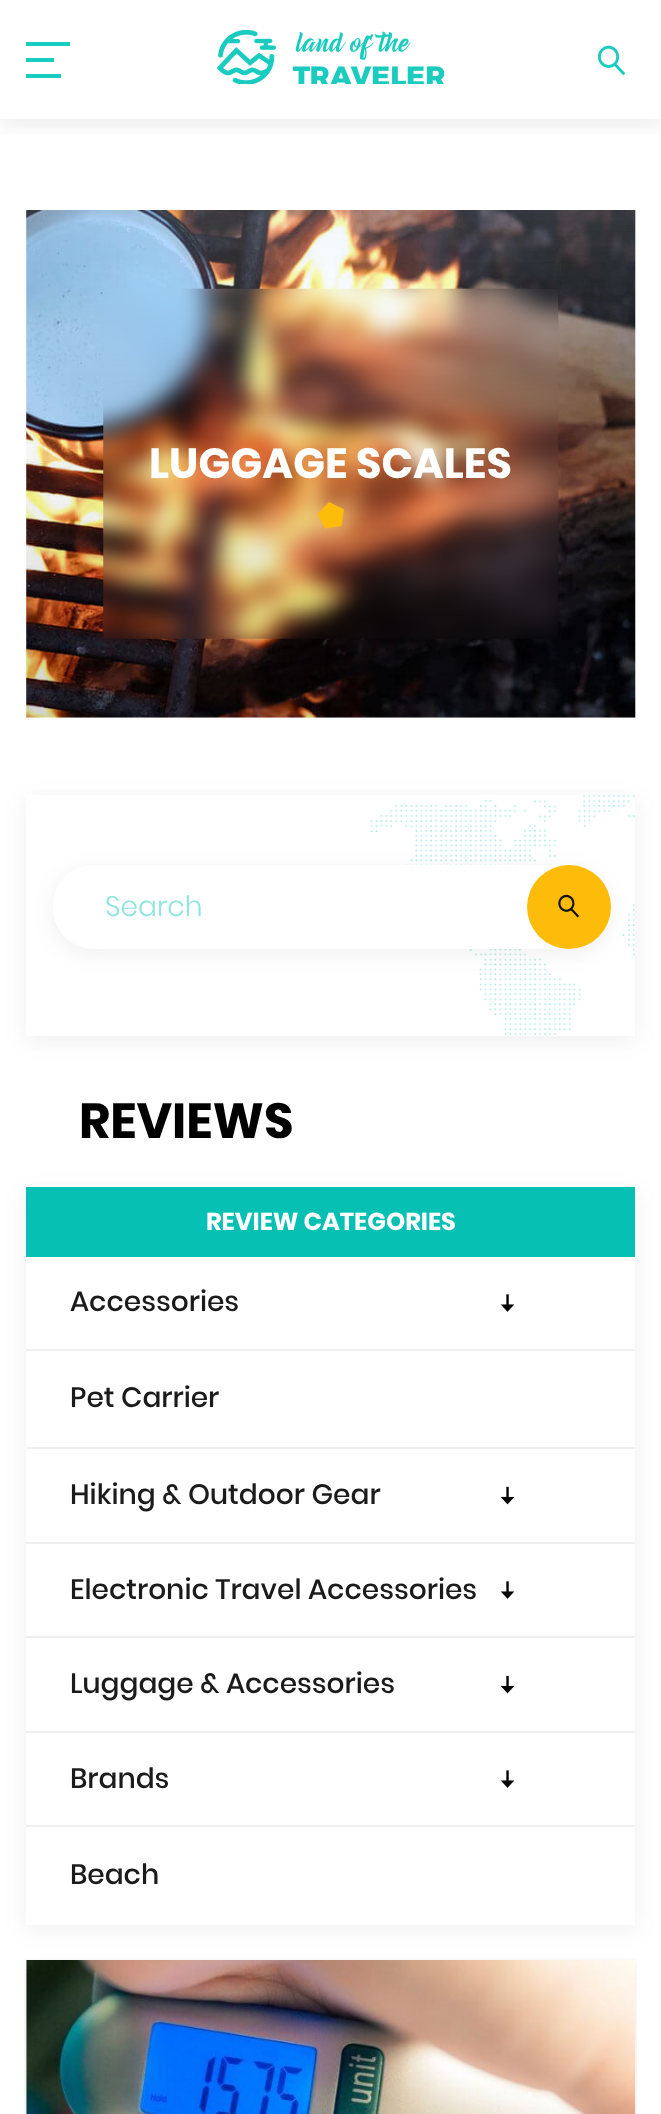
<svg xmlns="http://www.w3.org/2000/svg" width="661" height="2114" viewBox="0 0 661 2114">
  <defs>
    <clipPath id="clip1"><path d="M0 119h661v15H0z"/></clipPath>
  </defs>
  <rect width="100%" height="100%" fill="#fff"/>
  <g clip-path="url(#clip1)">
    <path d="M0 5h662v119H0z" fill="#4f4f4f1f" filter="blur(10.5px)"/>
  </g>
  <path d="M26 42h44v4H26z" fill="#1accbf"/>
  <path d="M26 58h28v4H26z" fill="#1accbf"/>
  <path d="M26 74h35v4H26z" fill="#1accbf"/>
  <image x="217" y="30" width="228" height="54" href="img/1.png"/>
  <image x="598" y="45" width="28" height="31" href="img/2.png"/>
  <image x="26" y="210" width="610" height="508" href="img/3.png"/>
  <image x="26" y="210" width="610" height="508" href="img/4.png"/>
  <image x="103" y="288" width="456" height="351" href="img/5.png"/>
  <image x="103" y="288" width="456" height="351" href="img/6.png"/>
  <path d="M341.5 526L325 528.5L317.5 514L329 502L344 509.5Z" fill="#fdbb0a"/>
  <path d="M26 800h609v241H26z" fill="#4f4f4f17" filter="blur(10.5px)"/>
  <path d="M26 795h609v241H26z" fill="#fff"/>
  <image x="370" y="795" width="265" height="241" href="img/7.png"/>
  <rect x="53" y="870" width="556" height="84" rx="40" fill="#4f4f4f17" filter="blur(10.5px)"/>
  <rect x="53" y="865" width="556" height="84" rx="40" fill="#fff"/>
  <circle cx="569" cy="907" r="42" fill="#fdbb0a"/>
  <image x="558" y="894" width="22" height="24" href="img/8.png"/>
  <path d="M26 1192h609v738H26z" fill="#4f4f4f17" filter="blur(10.5px)"/>
  <path d="M26 1257h609v668H26z" fill="#fff"/>
  <path d="M26 1187h609v70H26z" fill="#06c1b3"/>
  <path d="M26 1349h609v2H26z" fill="#efefef"/>
  <image x="500" y="1294" width="15" height="18" href="img/9.png"/>
  <path d="M26 1447h609v2H26z" fill="#efefef"/>
  <path d="M26 1542h609v2H26z" fill="#efefef"/>
  <image x="500" y="1486" width="15" height="19" href="img/10.png"/>
  <path d="M26 1636h609v2H26z" fill="#efefef"/>
  <image x="500" y="1581" width="15" height="18" href="img/9.png"/>
  <path d="M26 1731h609v2H26z" fill="#efefef"/>
  <image x="500" y="1675" width="15" height="19" href="img/10.png"/>
  <path d="M26 1825h609v2H26z" fill="#efefef"/>
  <image x="500" y="1770" width="15" height="18" href="img/9.png"/>
  <image x="24" y="1958" width="613" height="156" href="img/11.png"/>
  <text x="149" y="478" font-family="Poppins" font-size="42" font-weight="bold" fill="#fff">LUGGAGE SCALES</text>
  <text x="105" y="916" font-family="Poppins" font-size="28" font-weight="300" fill="#8ce5df">Search</text>
  <text x="79" y="1138" font-family="Poppins" font-size="49" font-weight="bold" fill="#000">REVIEWS</text>
  <text x="206" y="1230" font-family="Poppins" font-size="24.5" font-weight="bold" fill="#fff">REVIEW CATEGORIES</text>
  <g font-family="Poppins" font-size="28" font-weight="500" fill="#1b1b1b">
    <text x="70" y="1311">Accessories</text>
    <text x="70" y="1407">Pet Carrier</text>
    <text x="70" y="1504">Hiking &amp; Outdoor Gear</text>
    <text x="70" y="1599">Electronic Travel Accessories</text>
    <text x="70" y="1693">Luggage &amp; Accessories</text>
    <text x="70" y="1788">Brands</text>
    <text x="70" y="1884">Beach</text>
  </g>
</svg>
